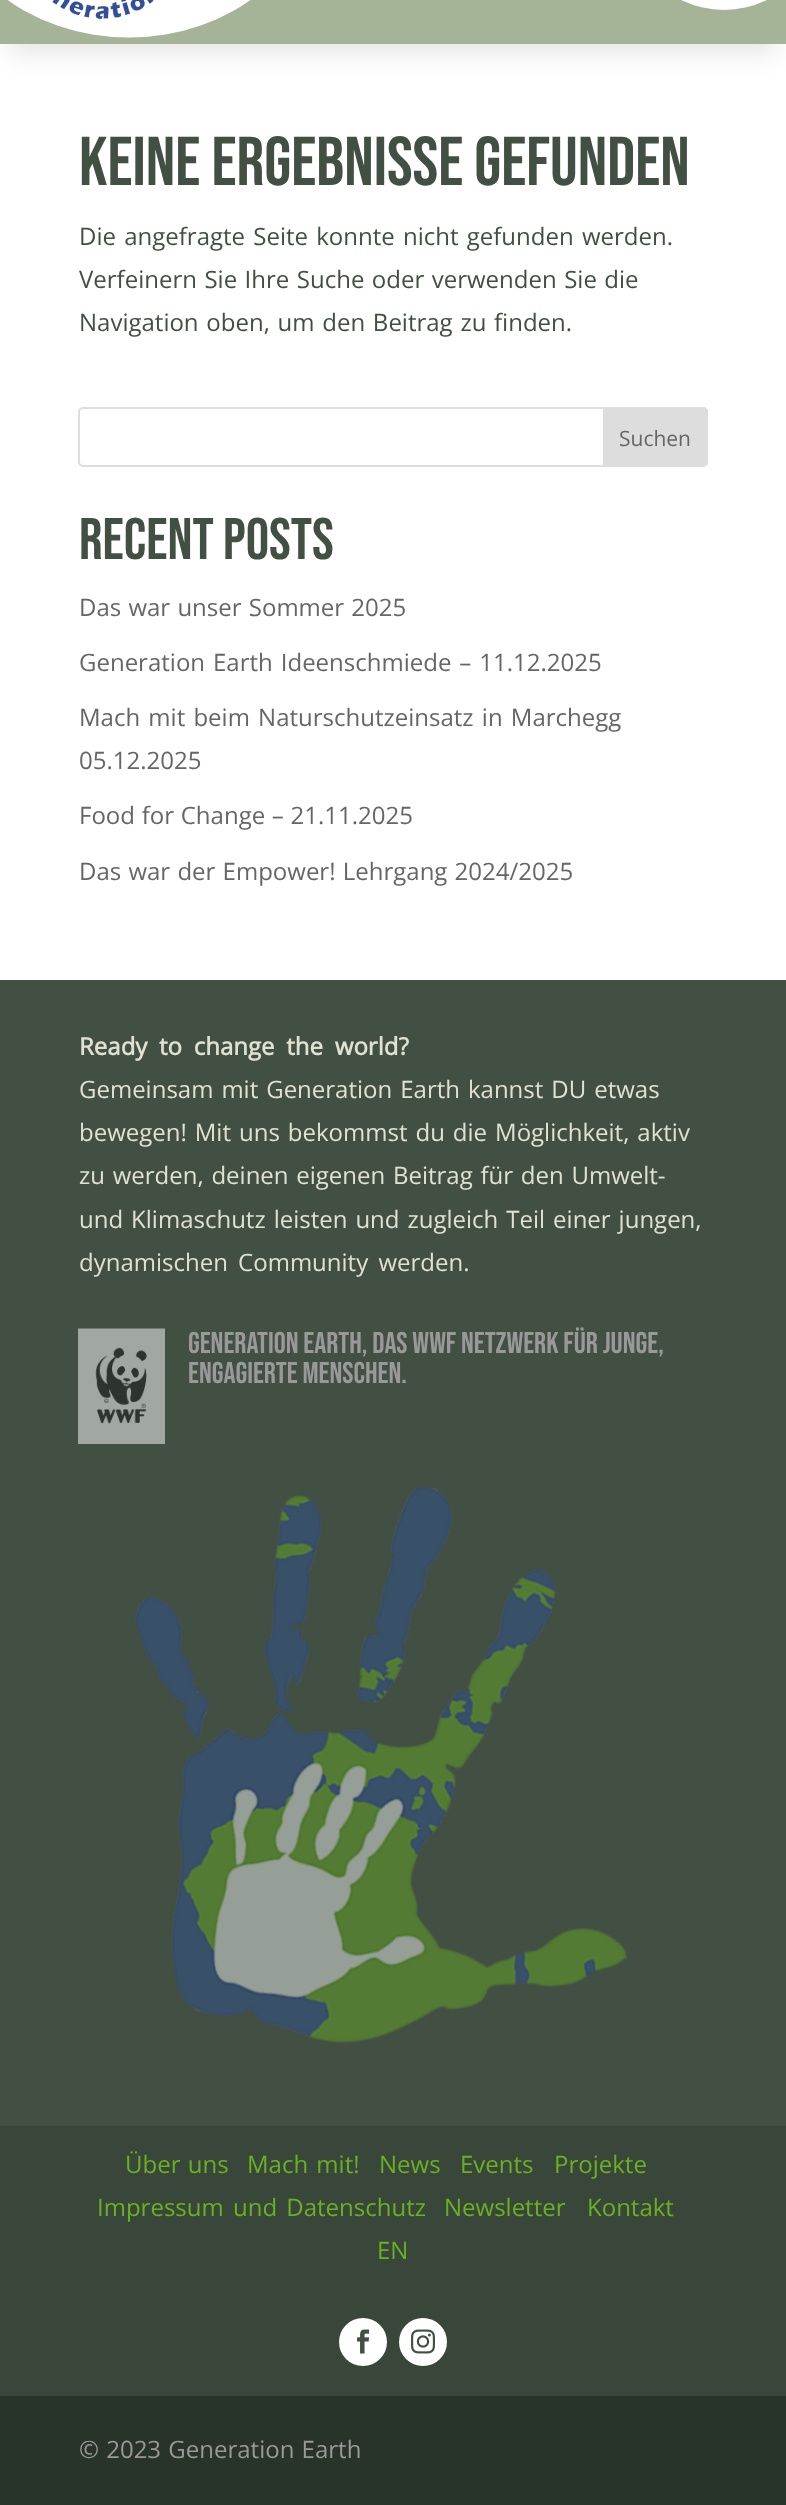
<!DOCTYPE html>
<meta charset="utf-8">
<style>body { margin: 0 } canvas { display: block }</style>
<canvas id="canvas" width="786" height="2505"></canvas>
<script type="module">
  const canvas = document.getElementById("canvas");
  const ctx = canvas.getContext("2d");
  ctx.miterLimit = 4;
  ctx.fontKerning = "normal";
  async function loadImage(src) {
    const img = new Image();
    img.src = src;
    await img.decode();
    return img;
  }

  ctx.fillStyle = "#ffffff";
  ctx.fillRect(0, 0, 786, 2505);
  ctx.fillStyle = "rgba(0, 0, 0, 0.1)";
  ctx.filter = "blur(13.5px)";
  ctx.beginPath();
  ctx.rect(9, -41, 768, 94);
  ctx.fill();
  ctx.filter = "none";
  ctx.fillStyle = "#a5b497";
  ctx.fillRect(0, 0, 786, 44);
  ctx.fillStyle = "#ffffff";
  ctx.beginPath();
  ctx.ellipse(129, -120, 187.5, 157.5, 0, 0, Math.PI * 2);
  ctx.fill();
  ctx.drawImage(await loadImage("img1.png"), 52, 0, 102, 20);
  ctx.beginPath();
  ctx.ellipse(724, -114.5, 109, 124.5, 0, 0, Math.PI * 2);
  ctx.fill();
  ctx.font = "69px Bebas Neue";
  ctx.fillStyle = "#415043";
  ctx.fillText("Keine Ergebnisse gefunden", 79, 185);
  ctx.wordSpacing = "2px";
  ctx.font = "24px Open Sans";
  ctx.fillText("Die angefragte Seite konnte nicht gefunden werden.", 79, 245);
  ctx.wordSpacing = "1.25px";
  ctx.fillText("Verfeinern Sie Ihre Suche oder verwenden Sie die", 79, 288);
  ctx.wordSpacing = "1.5px";
  ctx.fillText("Navigation oben, um den Beitrag zu finden.", 79, 331);
  ctx.beginPath();
  ctx.roundRect(79, 408, 628, 58, 4);
  ctx.strokeStyle = "#dddddd";
  ctx.lineWidth = 2;
  ctx.stroke();
  ctx.fillStyle = "#dddddd";
  ctx.beginPath();
  ctx.roundRect(604, 408, 103, 58, [0, 4, 4, 0]);
  ctx.fill();
  ctx.stroke();
  ctx.wordSpacing = "0px";
  ctx.font = "21px Open Sans";
  ctx.fillStyle = "#666666";
  ctx.fillText("Suchen", 619, 446);
  ctx.font = "58.5px Bebas Neue";
  ctx.fillStyle = "#415043";
  ctx.fillText("Recent Posts", 79, 559);
  ctx.wordSpacing = "1px";
  ctx.font = "24px Open Sans";
  ctx.fillStyle = "#666666";
  ctx.fillText("Das war unser Sommer 2025", 79, 616);
  ctx.wordSpacing = "1.75px";
  ctx.fillText("Generation Earth Ideenschmiede – 11.12.2025", 79, 671);
  ctx.wordSpacing = "2px";
  ctx.fillText("Mach mit beim Naturschutzeinsatz in Marchegg", 79, 726);
  ctx.wordSpacing = "0px";
  ctx.fillText("05.12.2025", 79, 769);
  ctx.wordSpacing = "0.5px";
  ctx.fillText("Food for Change – 21.11.2025", 79, 824);
  ctx.wordSpacing = "1px";
  ctx.fillText("Das war der Empower! Lehrgang 2024/2025", 79, 880);
  ctx.fillStyle = "#415043";
  ctx.fillRect(0, 980, 786, 1146);
  ctx.wordSpacing = "5.5px";
  ctx.font = "bold 24px Open Sans";
  ctx.fillStyle = "#e1e1d1";
  ctx.fillText("Ready to change the world?", 79, 1055);
  ctx.wordSpacing = "1.75px";
  ctx.font = "24px Open Sans";
  ctx.fillText("Gemeinsam mit Generation Earth kannst DU etwas", 79, 1098);
  ctx.fillText("bewegen! Mit uns bekommst du die Möglichkeit, aktiv", 79, 1141);
  ctx.wordSpacing = "1.5px";
  ctx.fillText("zu werden, deinen eigenen Beitrag für den Umwelt-", 79, 1184);
  ctx.wordSpacing = "1.75px";
  ctx.fillText("und Klimaschutz leisten und zugleich Teil einer jungen,", 79, 1228);
  ctx.wordSpacing = "4px";
  ctx.fillText("dynamischen Community werden.", 79, 1271);
  ctx.drawImage(await loadImage("img2.png"), 78, 1328, 87, 116);
  ctx.wordSpacing = "0px";
  ctx.font = "30px Bebas Neue";
  ctx.fillStyle = "#999999";
  ctx.fillText("Generation Earth, das WWF Netzwerk für junge,", 188, 1353);
  ctx.fillText("engagierte Menschen.", 188, 1383);
  ctx.drawImage(await loadImage("img3.png"), 134, 1486, 493, 557);
  ctx.fillStyle = "#39473b";
  ctx.fillRect(0, 2126, 786, 270);
  ctx.wordSpacing = "1px";
  ctx.font = "24px Open Sans";
  ctx.fillStyle = "#6bb022";
  ctx.fillText("Über uns", 125, 2173);
  ctx.wordSpacing = "2px";
  ctx.fillText("Mach mit!", 247, 2173);
  ctx.wordSpacing = "0px";
  ctx.fillText("News", 379, 2173);
  ctx.fillText("Events", 460, 2173);
  ctx.fillText("Projekte", 554, 2173);
  ctx.wordSpacing = "3px";
  ctx.fillText("Impressum und Datenschutz", 97, 2216);
  ctx.wordSpacing = "0px";
  ctx.fillText("Newsletter", 444, 2216);
  ctx.fillText("Kontakt", 587, 2216);
  ctx.fillText("EN", 377, 2259);
  ctx.fillStyle = "#ffffff";
  ctx.beginPath();
  ctx.arc(363, 2342, 24, 0, Math.PI * 2);
  ctx.fill();
  ctx.drawImage(await loadImage("img4.png"), 357, 2329, 13, 25);
  ctx.beginPath();
  ctx.arc(423, 2342, 24, 0, Math.PI * 2);
  ctx.fill();
  ctx.drawImage(await loadImage("img5.png"), 411, 2329, 24, 25);
  ctx.fillStyle = "#283329";
  ctx.fillRect(0, 2396, 786, 109);
  ctx.wordSpacing = "1px";
  ctx.fillStyle = "#999999";
  ctx.fillText("© 2023 Generation Earth", 79, 2458);
</script>
